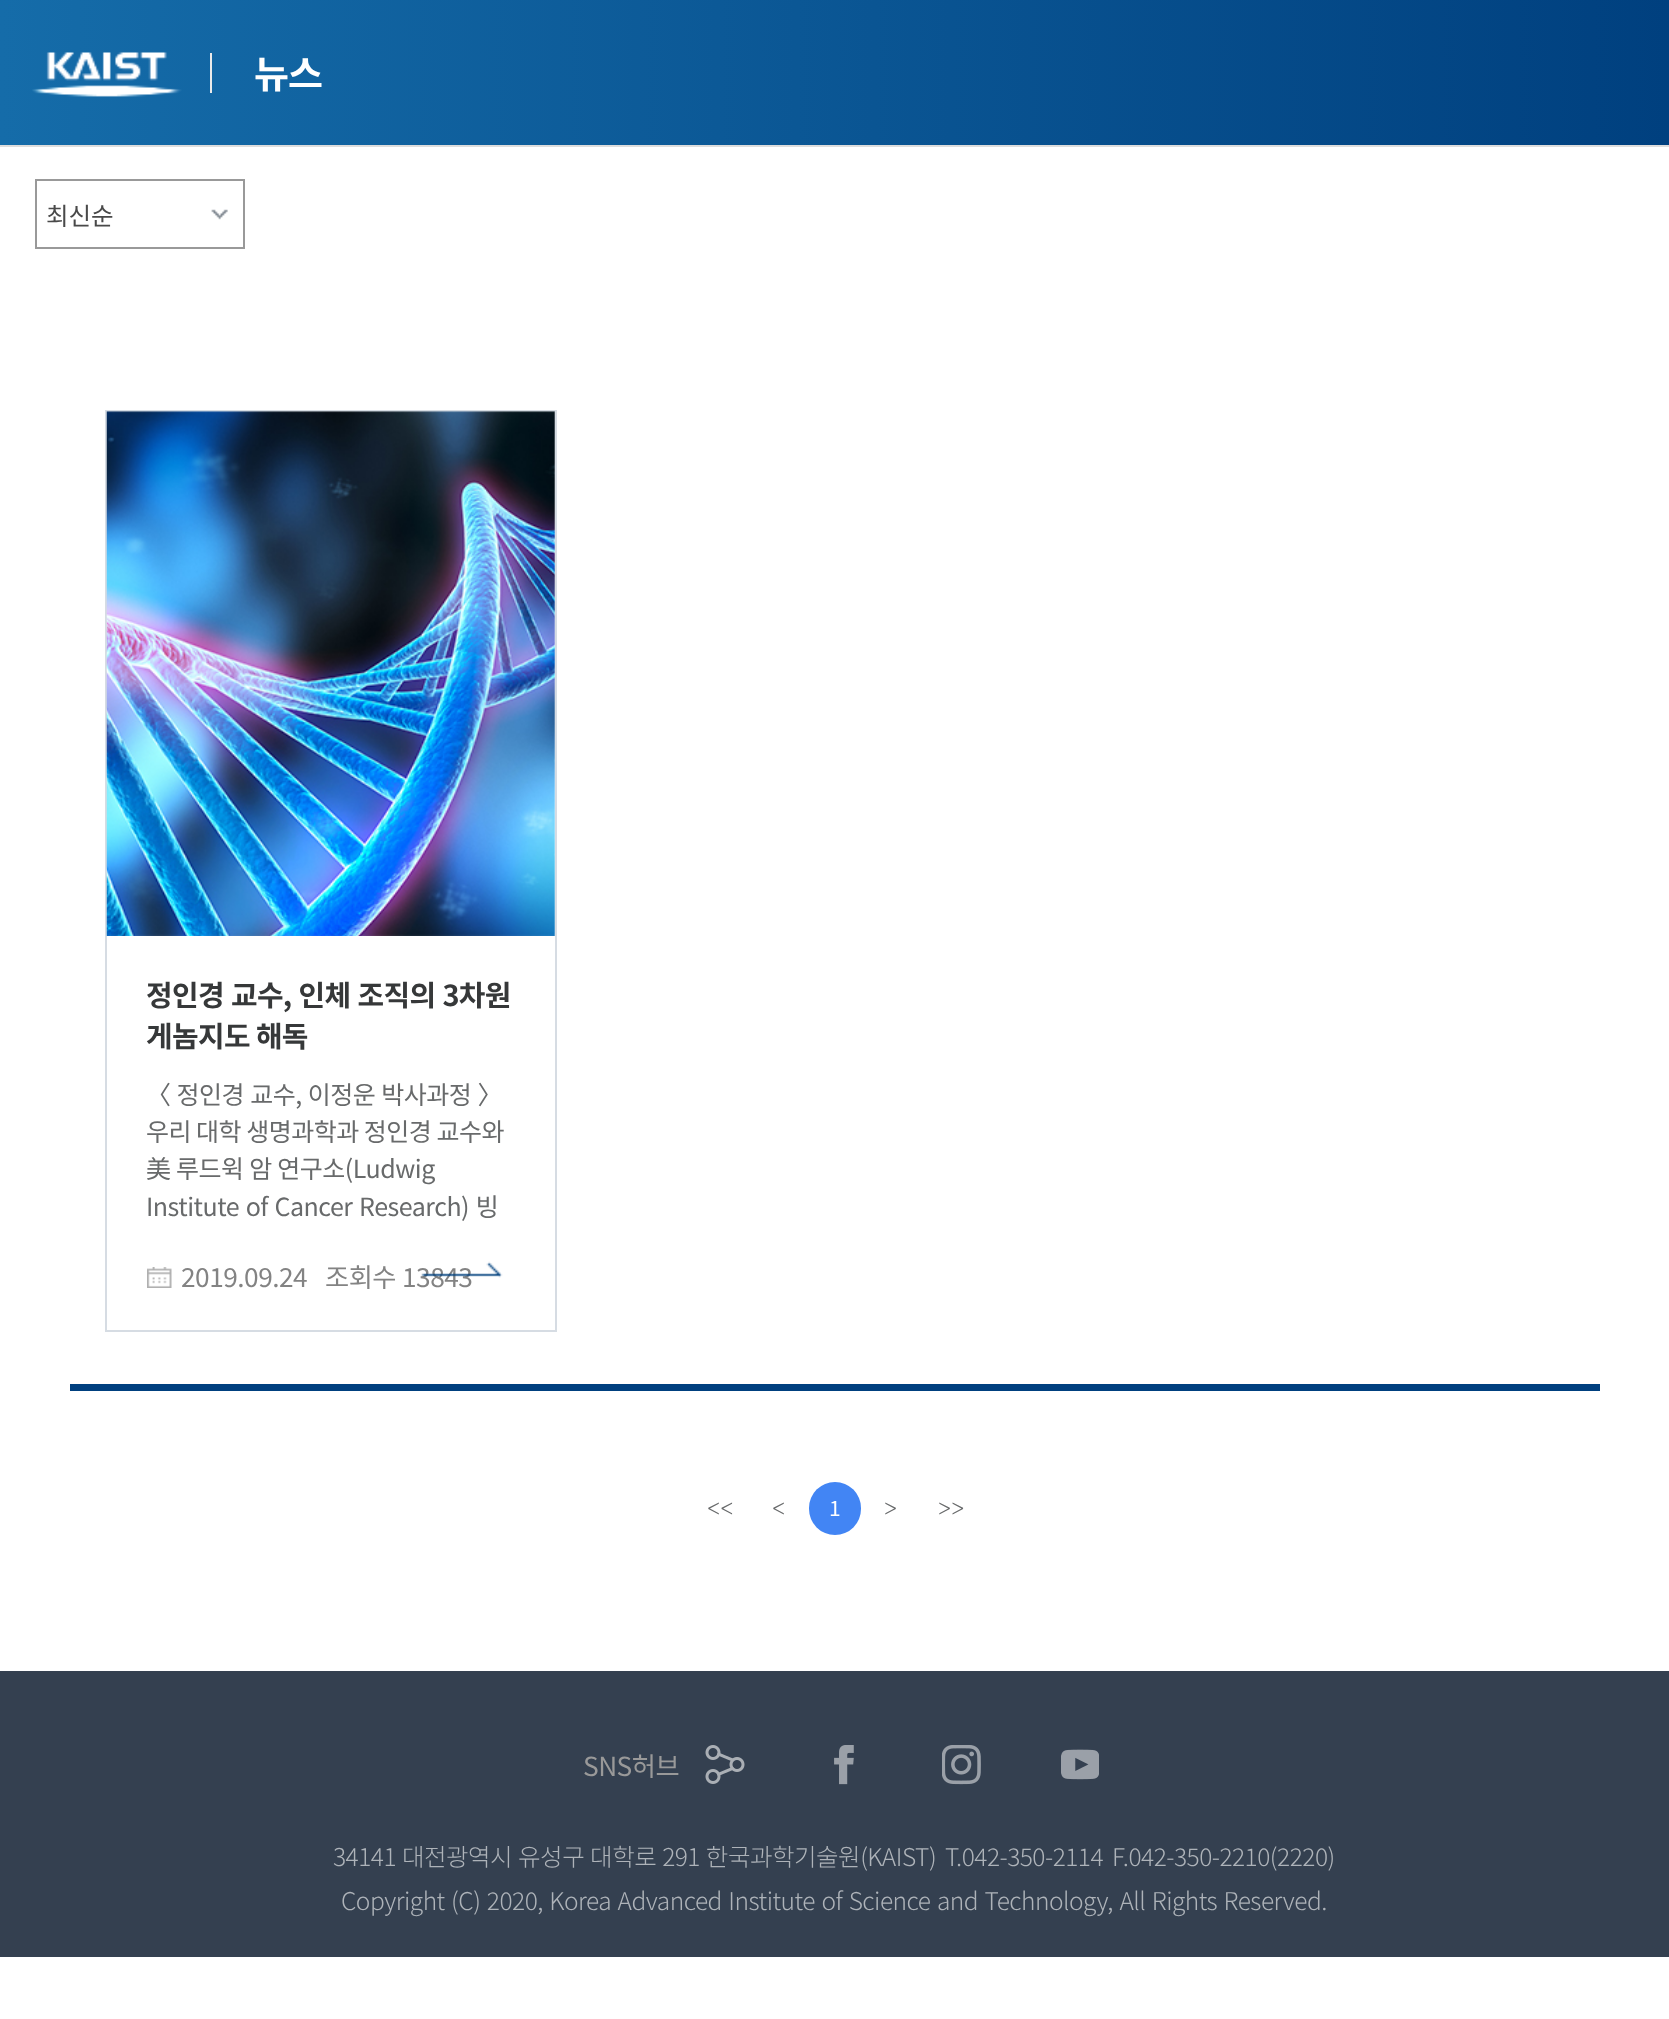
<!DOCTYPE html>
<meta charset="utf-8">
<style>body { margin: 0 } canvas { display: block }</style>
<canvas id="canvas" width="1669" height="2019"></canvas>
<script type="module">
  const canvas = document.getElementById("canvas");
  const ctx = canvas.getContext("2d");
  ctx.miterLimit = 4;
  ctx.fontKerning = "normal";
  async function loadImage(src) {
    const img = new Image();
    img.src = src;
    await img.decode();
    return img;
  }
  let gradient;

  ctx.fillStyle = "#ffffff";
  ctx.fillRect(0, 0, 1669, 2019);
  gradient = ctx.createLinearGradient(0, 73, 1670, 73);
  gradient.addColorStop(0, "#156ca9");
  gradient.addColorStop(1, "#00407f");
  ctx.fillStyle = gradient;
  ctx.fillRect(0, 0, 1669, 145);
  ctx.fillStyle = "#dddddd";
  ctx.fillRect(0, 145, 1669, 2);
  ctx.drawImage(await loadImage("img1.png"), 32, 52, 150, 45);
  ctx.fillStyle = "#eaeaea";
  ctx.fillRect(210, 53, 2, 40);
  ctx.letterSpacing = "-1px";
  ctx.font = "bold 38px Noto Sans CJK KR";
  ctx.fillStyle = "#ffffff";
  ctx.fillText("뉴스", 254, 88);
  ctx.drawImage(await loadImage("img2.png"), 211, 209, 17, 11);
  ctx.strokeStyle = "#999999";
  ctx.lineWidth = 2;
  ctx.strokeRect(36, 180, 208, 68);
  ctx.letterSpacing = "0px";
  ctx.font = "24.5px Noto Sans CJK KR";
  ctx.fillStyle = "#494949";
  ctx.fillText("최신순", 46, 225);
  ctx.strokeStyle = "#d6dce3";
  ctx.strokeRect(106, 411, 450, 920);
  ctx.drawImage(await loadImage("img3.png"), 106, 411, 449, 525);
  ctx.letterSpacing = "-0.6px";
  ctx.wordSpacing = "1px";
  ctx.font = "bold 28.9px Noto Sans CJK KR";
  ctx.fillStyle = "#363839";
  ctx.fillText("정인경 교수, 인체 조직의 3차원", 146, 1006);
  ctx.wordSpacing = "0px";
  ctx.fillText("게놈지도 해독", 146, 1047);
  ctx.letterSpacing = "-0.5px";
  ctx.wordSpacing = "1px";
  ctx.font = "25px Noto Sans CJK KR";
  ctx.fillStyle = "#686a6b";
  ctx.fillText("〈 정인경 교수, 이정운 박사과정 〉", 146, 1104);
  ctx.wordSpacing = "0px";
  ctx.fillText("우리 대학 생명과학과 정인경 교수와", 146, 1141);
  ctx.wordSpacing = "0.5px";
  ctx.fillText("美 루드윅 암 연구소(Ludwig", 146, 1178);
  ctx.wordSpacing = "1.5px";
  ctx.fillText("Institute of Cancer Research) 빙", 146, 1216);
  ctx.wordSpacing = "0px";
  ctx.font = "26.25px Noto Sans CJK KR";
  ctx.fillStyle = "#838383";
  ctx.fillText("13843", 402, 1287);
  ctx.drawImage(await loadImage("img4.png"), 421, 1261, 82, 17);
  ctx.drawImage(await loadImage("img5.png"), 147, 1267, 25, 21);
  ctx.fillText("2019.09.24", 181, 1287);
  ctx.fillText("조회수", 325, 1287);
  ctx.fillStyle = "#00407f";
  ctx.fillRect(70, 1384, 1530, 7);
  ctx.letterSpacing = "0px";
  ctx.font = "21px Dotum";
  ctx.fillStyle = "#686a6b";
  ctx.fillText("<<", 707, 1516);
  ctx.fillText("<", 772, 1516);
  ctx.fillStyle = "#4285f4";
  ctx.beginPath();
  ctx.roundRect(809, 1482, 52, 53, 26);
  ctx.fill();
  ctx.font = "21px Noto Sans CJK KR";
  ctx.fillStyle = "#ffffff";
  ctx.fillText("1", 829, 1516);
  ctx.font = "21px Dotum";
  ctx.fillStyle = "#686a6b";
  ctx.fillText(">", 884, 1516);
  ctx.fillText(">>", 938, 1516);
  ctx.fillStyle = "#344050";
  ctx.fillRect(0, 1671, 1669, 286);
  ctx.letterSpacing = "-0.5px";
  ctx.font = "26.25px Noto Sans CJK KR";
  ctx.fillStyle = "#999999";
  ctx.fillText("SNS허브", 583, 1776);
  ctx.drawImage(await loadImage("img6.png"), 705, 1745, 40, 39);
  ctx.drawImage(await loadImage("img7.png"), 834, 1745, 20, 40);
  ctx.drawImage(await loadImage("img8.png"), 942, 1745, 39, 40);
  ctx.drawImage(await loadImage("img9.png"), 1061, 1749, 38, 31);
  ctx.wordSpacing = "1px";
  ctx.font = "300 24.5px Noto Sans CJK KR";
  ctx.fillStyle = "#aeb3b9";
  ctx.fillText("34141 대전광역시 유성구 대학로 291 한국과학기술원(KAIST)", 333, 1866);
  ctx.wordSpacing = "0px";
  ctx.fillText("T.042-350-2114", 945, 1866);
  ctx.fillText("F.042-350-2210(2220)", 1112, 1866);
  ctx.wordSpacing = "1.5px";
  ctx.fillText("Copyright (C) 2020, Korea Advanced Institute of Science and Technology, All Rights Reserved.", 341, 1910);
</script>
